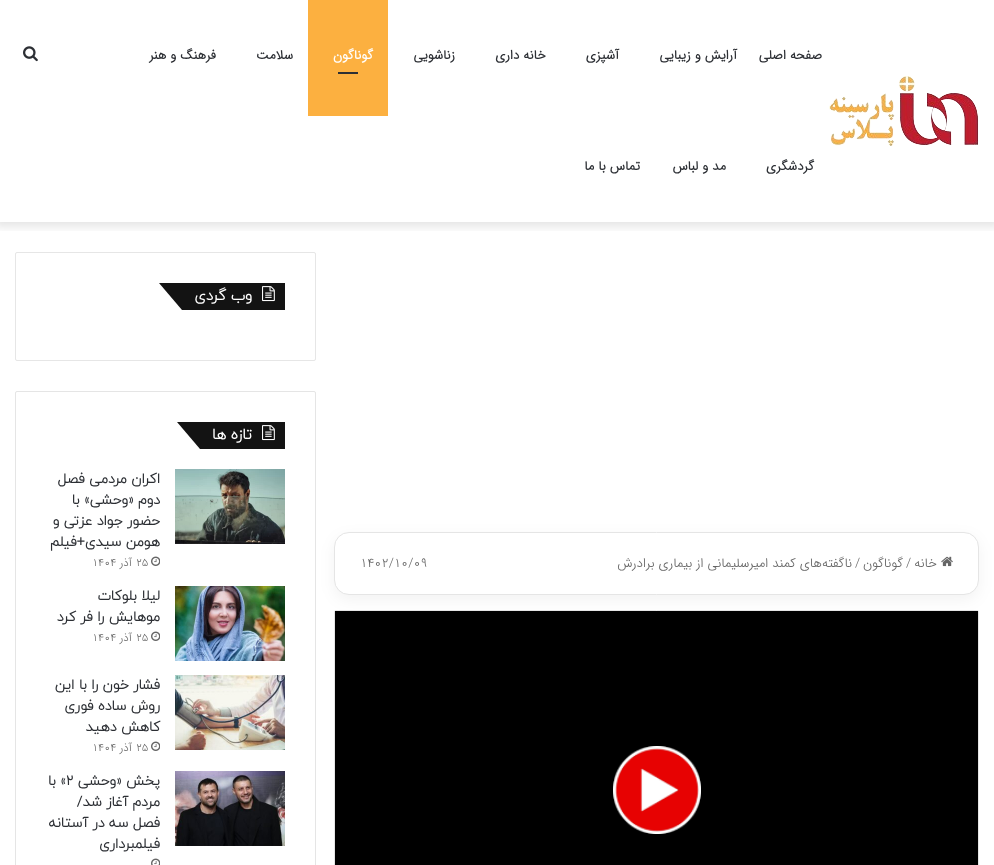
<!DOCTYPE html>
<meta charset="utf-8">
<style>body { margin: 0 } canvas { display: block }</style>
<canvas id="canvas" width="994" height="865"></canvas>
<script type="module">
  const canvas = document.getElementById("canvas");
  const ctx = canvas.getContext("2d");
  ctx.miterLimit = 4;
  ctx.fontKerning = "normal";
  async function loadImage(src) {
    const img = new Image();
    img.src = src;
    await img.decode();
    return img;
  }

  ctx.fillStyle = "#ffffff";
  ctx.fillRect(0, 0, 994, 865);
  ctx.save();
  ctx.beginPath();
  ctx.rect(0, 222, 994, 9);
  ctx.clip();
  ctx.fillStyle = "rgba(0, 0, 0, 0.1)";
  ctx.filter = "blur(5px)";
  ctx.beginPath();
  ctx.rect(-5, -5, 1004, 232);
  ctx.fill();
  ctx.filter = "none";
  ctx.restore();
  ctx.drawImage(await loadImage("img1.png"), 829, 76, 150, 70);
  ctx.direction = "rtl";
  ctx.font = "bold 13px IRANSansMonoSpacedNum";
  ctx.fillStyle = "#2c2f34";
  ctx.fillText("صفحه اصلی", 822, 59);
  ctx.fillText("آرایش و زیبایی", 737, 59);
  ctx.fillText("آشپزی", 619, 59);
  ctx.fillText("خانه داری", 546, 59);
  ctx.fillText("زناشویی", 455, 59);
  ctx.fillStyle = "#fcb040";
  ctx.fillRect(308, 0, 80, 116);
  ctx.fillStyle = "#ffffff";
  ctx.fillText("گوناگون", 373, 59);
  ctx.fillStyle = "#2c2f34";
  ctx.fillRect(338, 72, 20, 2);
  ctx.fillText("سلامت", 293, 59);
  ctx.fillText("فرهنگ و هنر", 216, 59);
  ctx.fillText("گردشگری", 814, 170);
  ctx.fillText("مد و لباس", 726, 170);
  ctx.fillText("تماس با ما", 640, 170);
  ctx.drawImage(await loadImage("img2.png"), 23, 46, 15, 16);
  ctx.fillStyle = "rgba(0, 0, 0, 0.05)";
  ctx.filter = "blur(7.5px)";
  ctx.beginPath();
  ctx.roundRect(334, 537, 645, 63, 15);
  ctx.fill();
  ctx.filter = "none";
  ctx.fillStyle = "#ffffff";
  ctx.beginPath();
  ctx.roundRect(334.5, 532.5, 644, 62, 14.5);
  ctx.fill();
  ctx.strokeStyle = "#e5e5e5";
  ctx.stroke();
  ctx.drawImage(await loadImage("img3.png"), 941, 556, 12, 11);
  ctx.font = "300 13px IRANSansMonoSpacedNum";
  ctx.fillStyle = "#666666";
  ctx.fillText("خانه", 937, 567);
  ctx.direction = "ltr";
  ctx.fillText("/", 906, 567);
  ctx.direction = "rtl";
  ctx.fillText("گوناگون", 903, 567);
  ctx.direction = "ltr";
  ctx.fillText("/", 855, 567);
  ctx.direction = "rtl";
  ctx.fillText("ناگفته‌های کمند امیرسلیمانی از بیماری برادرش", 852, 567);
  ctx.direction = "ltr";
  ctx.fillText("1402/10/09", 360, 567);
  ctx.beginPath();
  ctx.roundRect(334.5, 610.5, 644, 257, 1.5);
  ctx.stroke();
  ctx.fillStyle = "#000000";
  ctx.fillRect(335, 611, 643, 254);
  ctx.drawImage(await loadImage("img4.png"), 613, 746, 88, 88);
  ctx.beginPath();
  ctx.roundRect(15.5, 252.5, 300, 108, 1.5);
  ctx.strokeStyle = "#e6e6e6";
  ctx.stroke();
  ctx.fillStyle = "#131313";
  ctx.fillRect(230, 283, 55, 27);
  ctx.beginPath();
  ctx.moveTo(159, 283);
  ctx.lineTo(230, 283);
  ctx.lineTo(252, 310);
  ctx.lineTo(182, 310);
  ctx.closePath();
  ctx.fill();
  ctx.drawImage(await loadImage("img5.png"), 262, 286, 13, 16);
  ctx.direction = "rtl";
  ctx.font = "bold 15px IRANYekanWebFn";
  ctx.fillStyle = "#ffffff";
  ctx.fillText("وب گردی", 252, 300);
  ctx.beginPath();
  ctx.roundRect(15.5, 391.5, 300, 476, 1.5);
  ctx.strokeStyle = "#e5e5e5";
  ctx.stroke();
  ctx.fillStyle = "#131313";
  ctx.fillRect(235, 422, 50, 27);
  ctx.beginPath();
  ctx.moveTo(177, 422);
  ctx.lineTo(235, 422);
  ctx.lineTo(258, 449);
  ctx.lineTo(200, 449);
  ctx.closePath();
  ctx.fill();
  ctx.drawImage(await loadImage("img5.png"), 262, 425, 13, 16);
  ctx.fillStyle = "#ffffff";
  ctx.fillText("تازه ها", 252, 439);
  ctx.drawImage(await loadImage("img6.png"), 175, 469, 110, 75);
  ctx.font = "bold 14px IRANYekanWebFn";
  ctx.fillStyle = "#2c2f34";
  ctx.fillText("اکران مردمی فصل", 160, 483);
  ctx.fillText("دوم «وحشی» با", 160, 504);
  ctx.fillText("حضور جواد عزتی و", 160, 525);
  ctx.fillText("هومن سیدی+فیلم", 160, 546);
  ctx.drawImage(await loadImage("img7.png"), 151, 556, 9, 10);
  ctx.direction = "ltr";
  ctx.font = "300 11px IRANSansMonoSpacedNum";
  ctx.fillStyle = "#666666";
  ctx.fillText("۲۵", 136, 566);
  ctx.direction = "rtl";
  ctx.fillText("آذر", 132, 566);
  ctx.direction = "ltr";
  ctx.fillText("۱۴۰۴", 92, 566);
  ctx.drawImage(await loadImage("img8.png"), 175, 586, 110, 75);
  ctx.direction = "rtl";
  ctx.font = "bold 14px IRANYekanWebFn";
  ctx.fillStyle = "#2c2f34";
  ctx.fillText("لیلا بلوکات", 160, 600);
  ctx.fillText("موهایش را فر کرد", 160, 621);
  ctx.drawImage(await loadImage("img7.png"), 151, 631, 9, 10);
  ctx.direction = "ltr";
  ctx.font = "300 11px IRANSansMonoSpacedNum";
  ctx.fillStyle = "#666666";
  ctx.fillText("۲۵", 136, 641);
  ctx.direction = "rtl";
  ctx.fillText("آذر", 132, 641);
  ctx.direction = "ltr";
  ctx.fillText("۱۴۰۴", 92, 641);
  ctx.drawImage(await loadImage("img9.png"), 175, 675, 110, 75);
  ctx.direction = "rtl";
  ctx.font = "bold 14px IRANYekanWebFn";
  ctx.fillStyle = "#2c2f34";
  ctx.fillText("فشار خون را با این", 160, 689);
  ctx.fillText("روش ساده فوری", 160, 710);
  ctx.fillText("کاهش دهید", 160, 731);
  ctx.drawImage(await loadImage("img7.png"), 151, 741, 9, 10);
  ctx.direction = "ltr";
  ctx.font = "300 11px IRANSansMonoSpacedNum";
  ctx.fillStyle = "#666666";
  ctx.fillText("۲۵", 136, 751);
  ctx.direction = "rtl";
  ctx.fillText("آذر", 132, 751);
  ctx.direction = "ltr";
  ctx.fillText("۱۴۰۴", 92, 751);
  ctx.drawImage(await loadImage("img10.png"), 175, 771, 110, 75);
  ctx.direction = "rtl";
  ctx.font = "bold 14px IRANYekanWebFn";
  ctx.fillStyle = "#2c2f34";
  ctx.fillText("پخش «وحشی", 160, 785);
  ctx.direction = "ltr";
  ctx.fillText("۲", 66, 785);
  ctx.direction = "rtl";
  ctx.fillText("» با", 66, 785);
  ctx.fillText("مردم آغاز شد/", 160, 806);
  ctx.fillText("فصل سه در آستانه", 160, 827);
  ctx.fillText("فیلمبرداری", 160, 848);
  ctx.drawImage(await loadImage("img11.png"), 151, 858, 9, 7);
</script>
